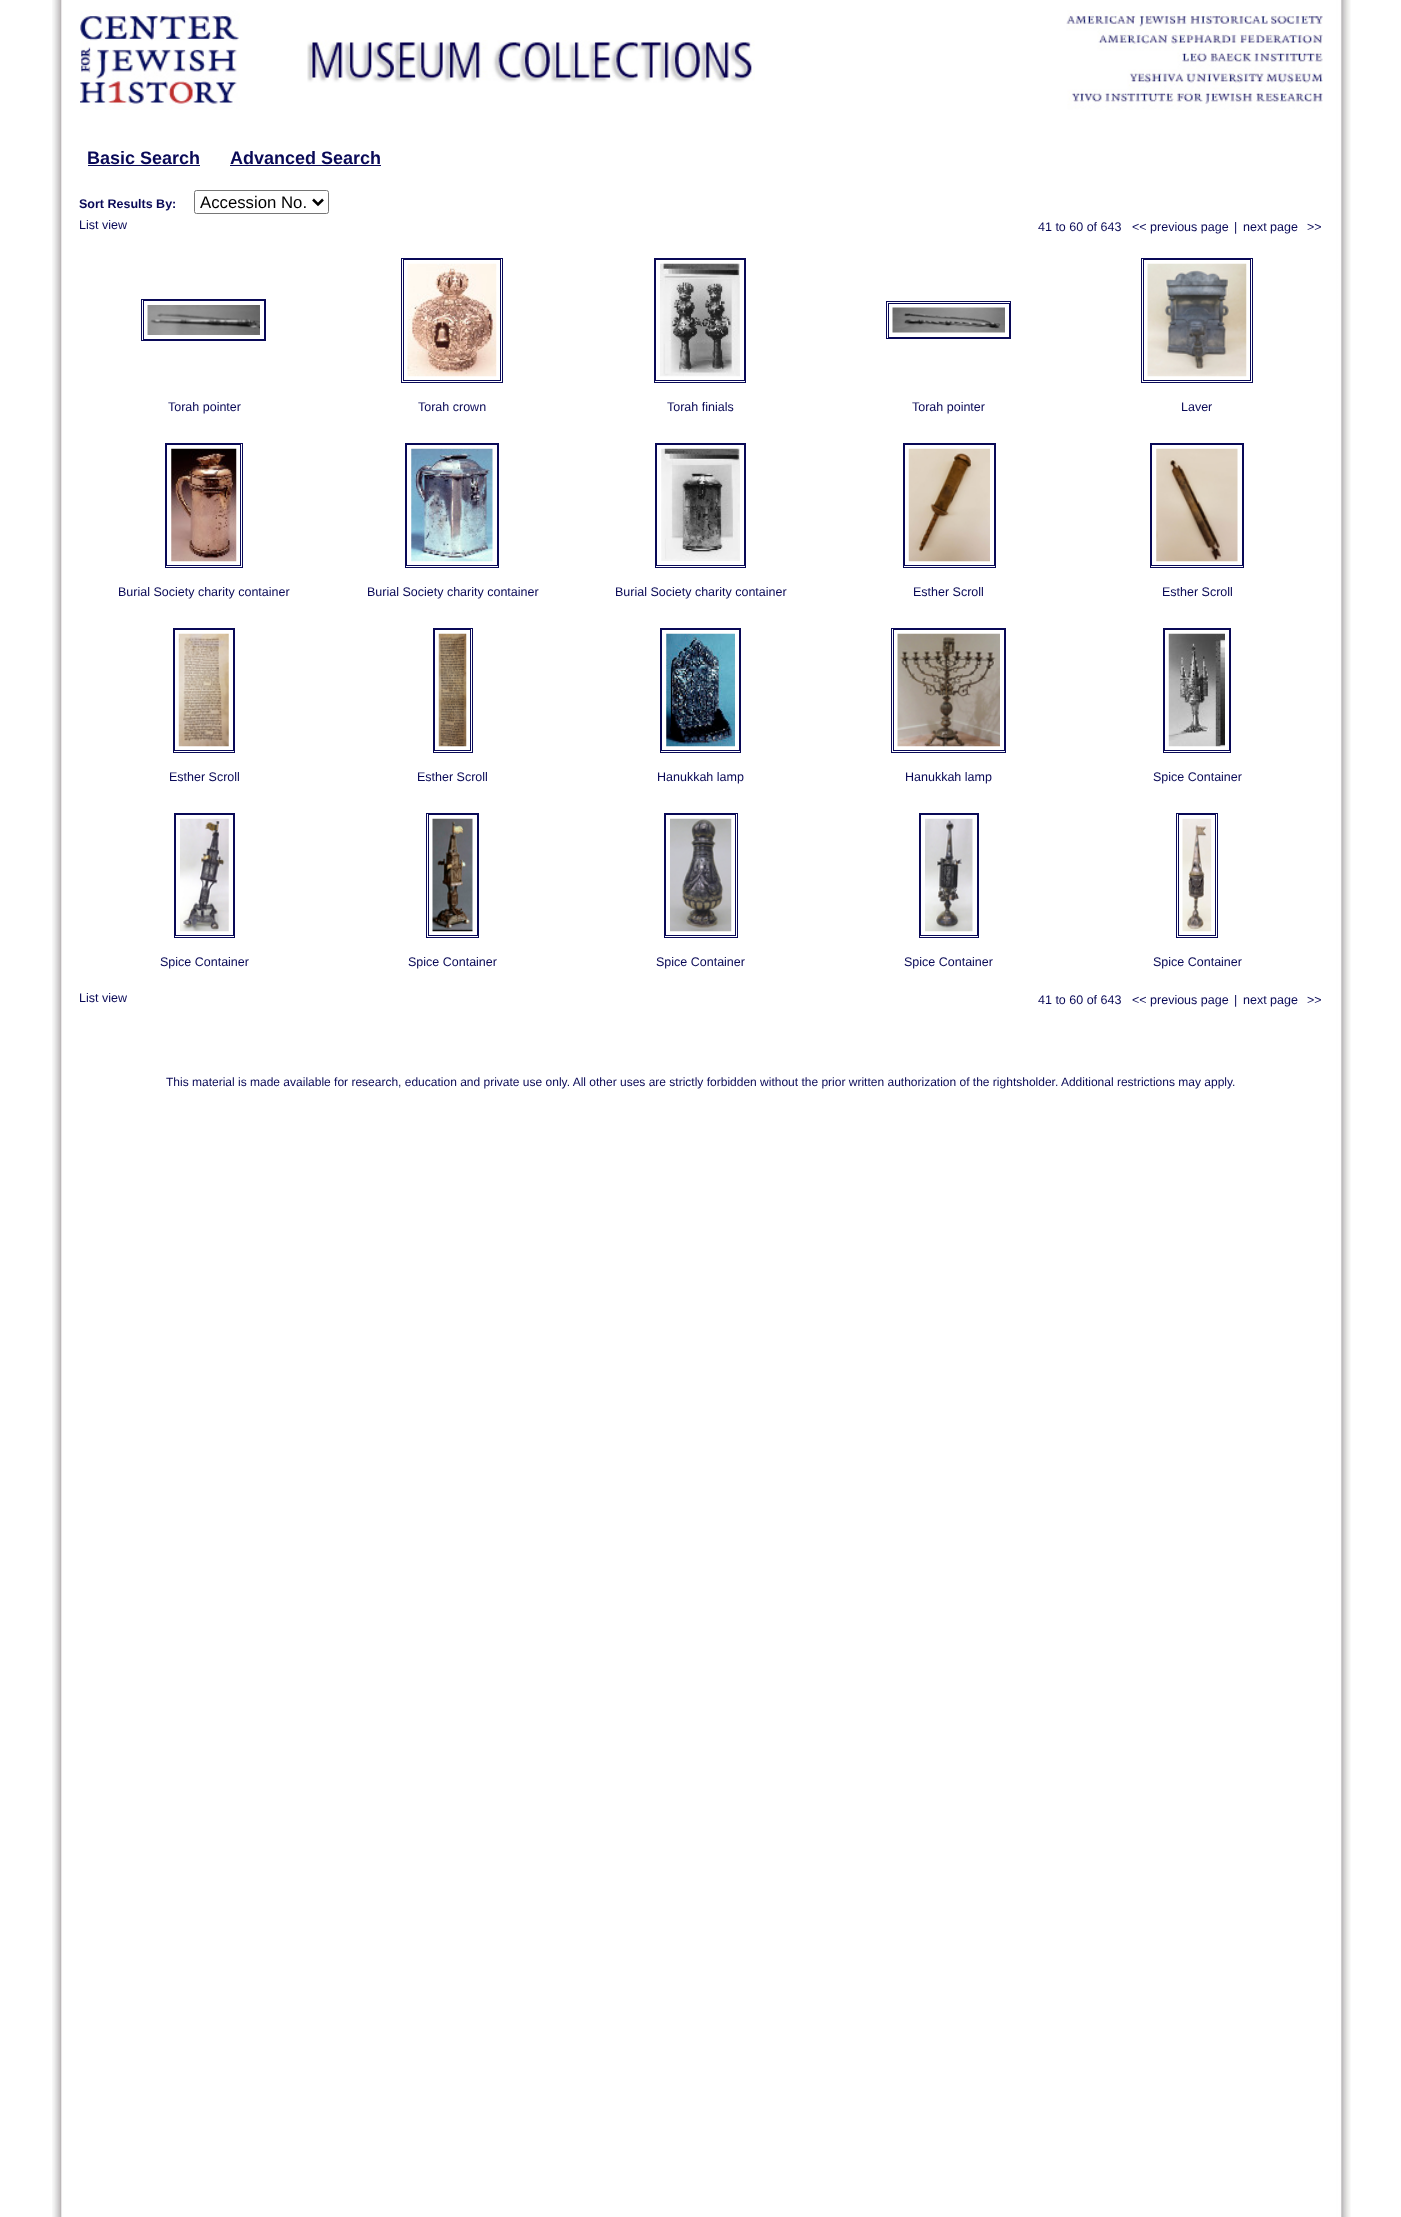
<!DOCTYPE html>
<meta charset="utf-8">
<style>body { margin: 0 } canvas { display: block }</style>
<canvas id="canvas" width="1401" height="2217"></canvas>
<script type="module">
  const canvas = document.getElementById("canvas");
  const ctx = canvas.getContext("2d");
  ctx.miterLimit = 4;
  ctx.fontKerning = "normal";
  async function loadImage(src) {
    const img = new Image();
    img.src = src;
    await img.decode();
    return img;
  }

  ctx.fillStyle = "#ffffff";
  ctx.fillRect(0, 0, 1401, 2217);
  ctx.drawImage(await loadImage("img1.png"), 52, 0, 1299, 2217);
  ctx.drawImage(await loadImage("img2.png"), 80, 10, 160, 100);
  ctx.drawImage(await loadImage("img3.png"), 307, 40, 448, 43);
  ctx.drawImage(await loadImage("img4.png"), 1066, 10, 257, 100);
  ctx.font = "bold 18px Liberation Sans";
  ctx.fillStyle = "#090957";
  ctx.fillText("Basic Search", 87, 164);
  ctx.fillRect(88, 165, 112, 1);
  ctx.fillText("Advanced Search", 230, 164);
  ctx.fillRect(230, 165, 151, 1);
  ctx.font = "bold 12.5px Liberation Sans";
  ctx.fillText("Sort Results By:", 79, 208);
  ctx.beginPath();
  ctx.roundRect(194.5, 190.5, 134, 23, 2);
  ctx.strokeStyle = "#767676";
  ctx.stroke();
  ctx.beginPath();
  ctx.moveTo(313, 199.5);
  ctx.lineTo(318, 204.5);
  ctx.lineTo(323, 199.5);
  ctx.strokeStyle = "#000000";
  ctx.lineWidth = 2.5;
  ctx.stroke();
  ctx.font = "16.75px Liberation Sans";
  ctx.fillStyle = "#000000";
  ctx.fillText("Accession No.", 200, 208);
  ctx.font = "12.5px Liberation Sans";
  ctx.fillStyle = "#090957";
  ctx.fillText("List view", 79, 229);
  ctx.fillText("41 to 60 of 643", 1038, 231);
  ctx.fillText("<< previous page", 1132, 231);
  ctx.fillText("|", 1234, 231);
  ctx.fillText("next page", 1243, 231);
  ctx.fillText(">>", 1307, 231);
  ctx.strokeStyle = "#090957";
  ctx.lineWidth = 1;
  ctx.strokeRect(141.5, 299.5, 124, 41);
  ctx.strokeRect(143.5, 300.5, 121, 39);
  ctx.drawImage(await loadImage("img5.png"), 147, 305, 113, 30);
  ctx.fillText("Torah pointer", 168, 411);
  ctx.strokeRect(401.5, 258.5, 101, 124);
  ctx.strokeRect(403.5, 259.5, 97, 121);
  ctx.drawImage(await loadImage("img6.png"), 407, 263, 90, 114);
  ctx.fillText("Torah crown", 418, 411);
  ctx.strokeRect(654.5, 258.5, 91, 124);
  ctx.strokeRect(655.5, 259.5, 89, 121);
  ctx.drawImage(await loadImage("img7.png"), 660, 263, 80, 114);
  ctx.fillText("Torah finials", 667, 411);
  ctx.strokeRect(886.5, 301.5, 124, 37);
  ctx.strokeRect(888.5, 303.5, 121, 34);
  ctx.drawImage(await loadImage("img8.png"), 892, 307, 113, 26);
  ctx.fillText("Torah pointer", 912, 411);
  ctx.strokeRect(1141.5, 258.5, 111, 124);
  ctx.strokeRect(1143.5, 259.5, 107, 121);
  ctx.drawImage(await loadImage("img9.png"), 1147, 263, 100, 114);
  ctx.fillText("Laver", 1181, 411);
  ctx.strokeRect(165.5, 443.5, 77, 124);
  ctx.strokeRect(166.5, 444.5, 74, 121);
  ctx.drawImage(await loadImage("img10.png"), 171, 448, 66, 114);
  ctx.fillText("Burial Society charity container", 118, 596);
  ctx.strokeRect(405.5, 443.5, 93, 124);
  ctx.strokeRect(406.5, 444.5, 91, 121);
  ctx.drawImage(await loadImage("img11.png"), 411, 448, 82, 114);
  ctx.fillText("Burial Society charity container", 367, 596);
  ctx.strokeRect(655.5, 443.5, 90, 124);
  ctx.strokeRect(656.5, 444.5, 88, 121);
  ctx.drawImage(await loadImage("img12.png"), 661, 448, 79, 113);
  ctx.fillText("Burial Society charity container", 615, 596);
  ctx.strokeRect(903.5, 443.5, 92, 124);
  ctx.strokeRect(904.5, 444.5, 90, 121);
  ctx.drawImage(await loadImage("img13.png"), 908, 448, 82, 114);
  ctx.fillText("Esther Scroll", 913, 596);
  ctx.strokeRect(1150.5, 443.5, 93, 124);
  ctx.strokeRect(1151.5, 444.5, 91, 121);
  ctx.drawImage(await loadImage("img14.png"), 1156, 448, 82, 114);
  ctx.fillText("Esther Scroll", 1162, 596);
  ctx.strokeRect(173.5, 628.5, 61, 124);
  ctx.strokeRect(174.5, 629.5, 59, 121);
  ctx.drawImage(await loadImage("img15.png"), 178, 633, 51, 114);
  ctx.fillText("Esther Scroll", 169, 781);
  ctx.strokeRect(433.5, 628.5, 39, 124);
  ctx.strokeRect(434.5, 629.5, 36, 121);
  ctx.drawImage(await loadImage("img16.png"), 438, 633, 29, 114);
  ctx.fillText("Esther Scroll", 417, 781);
  ctx.strokeRect(660.5, 628.5, 80, 124);
  ctx.strokeRect(661.5, 629.5, 78, 121);
  ctx.drawImage(await loadImage("img17.png"), 666, 633, 69, 114);
  ctx.fillText("Hanukkah lamp", 657, 781);
  ctx.strokeRect(891.5, 628.5, 114, 124);
  ctx.strokeRect(893.5, 629.5, 111, 121);
  ctx.drawImage(await loadImage("img18.png"), 897, 633, 103, 114);
  ctx.fillText("Hanukkah lamp", 905, 781);
  ctx.strokeRect(1163.5, 628.5, 67, 124);
  ctx.strokeRect(1164.5, 629.5, 65, 121);
  ctx.drawImage(await loadImage("img19.png"), 1168, 633, 57, 114);
  ctx.fillText("Spice Container", 1153, 781);
  ctx.strokeRect(174.5, 813.5, 60, 124);
  ctx.strokeRect(175.5, 814.5, 58, 121);
  ctx.drawImage(await loadImage("img20.png"), 180, 818, 49, 114);
  ctx.fillText("Spice Container", 160, 966);
  ctx.strokeRect(426.5, 813.5, 52, 124);
  ctx.strokeRect(428.5, 814.5, 49, 121);
  ctx.drawImage(await loadImage("img21.png"), 432, 818, 41, 114);
  ctx.fillText("Spice Container", 408, 966);
  ctx.strokeRect(664.5, 813.5, 73, 124);
  ctx.strokeRect(665.5, 814.5, 70, 121);
  ctx.drawImage(await loadImage("img22.png"), 670, 818, 62, 114);
  ctx.fillText("Spice Container", 656, 966);
  ctx.strokeRect(919.5, 813.5, 59, 124);
  ctx.strokeRect(920.5, 814.5, 57, 121);
  ctx.drawImage(await loadImage("img23.png"), 925, 818, 48, 114);
  ctx.fillText("Spice Container", 904, 966);
  ctx.strokeRect(1176.5, 813.5, 41, 124);
  ctx.strokeRect(1178.5, 814.5, 37, 121);
  ctx.drawImage(await loadImage("img24.png"), 1182, 818, 30, 114);
  ctx.fillText("Spice Container", 1153, 966);
  ctx.fillText("List view", 79, 1002);
  ctx.fillText("41 to 60 of 643", 1038, 1004);
  ctx.fillText("<< previous page", 1132, 1004);
  ctx.fillText("|", 1234, 1004);
  ctx.fillText("next page", 1243, 1004);
  ctx.fillText(">>", 1307, 1004);
  ctx.font = "12px Liberation Sans";
  ctx.fillText("This material is made available for research, education and private use only. All other uses are strictly forbidden without the prior written authorization of the rightsholder. Additional restrictions may apply.", 166, 1086);
</script>
